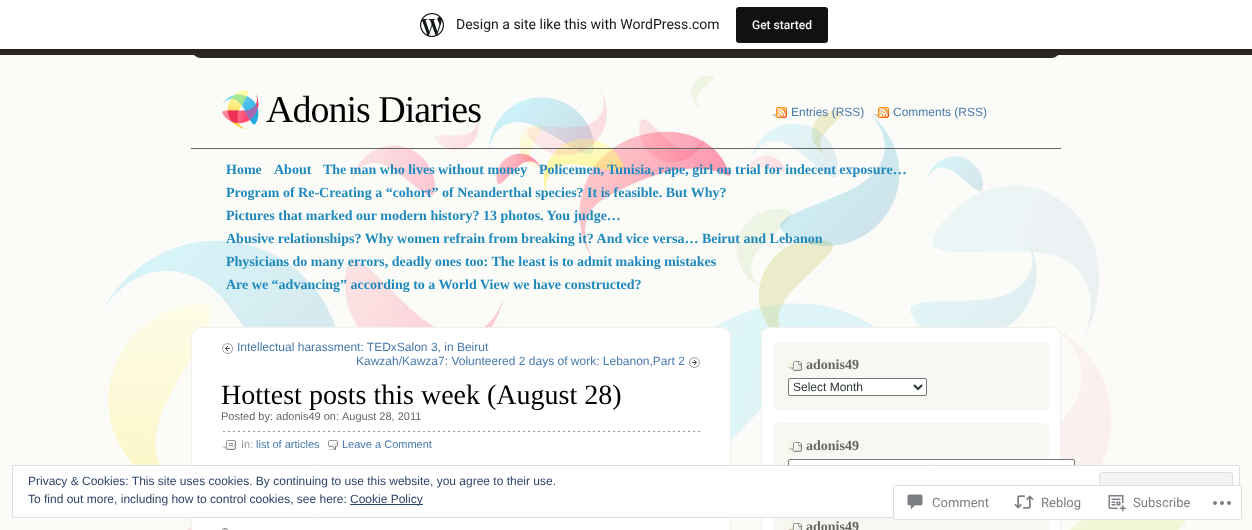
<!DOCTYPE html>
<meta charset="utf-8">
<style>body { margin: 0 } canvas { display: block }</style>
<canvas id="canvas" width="1252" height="530"></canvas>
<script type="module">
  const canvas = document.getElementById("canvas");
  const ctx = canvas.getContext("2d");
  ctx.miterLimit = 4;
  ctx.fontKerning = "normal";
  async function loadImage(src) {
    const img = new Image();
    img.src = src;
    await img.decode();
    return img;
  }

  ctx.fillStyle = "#fbfbf8";
  ctx.fillRect(0, 0, 1252, 530);
  ctx.drawImage(await loadImage("img1.png"), 103, 72, 1088, 458);
  ctx.fillStyle = "#2a2623";
  ctx.fillRect(0, 49, 1252, 6);
  ctx.fillStyle = "#272320";
  ctx.beginPath();
  ctx.moveTo(1, 49);
  ctx.lineTo(1, 52);
  ctx.lineTo(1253, 52);
  ctx.lineTo(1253, 3);
  ctx.lineTo(1252, 3);
  ctx.lineTo(1252, 49);
  ctx.closePath();
  ctx.fill();
  ctx.fillStyle = "#ffffff";
  ctx.fillRect(0, 0, 1252, 49);
  ctx.drawImage(await loadImage("img2.png"), 420, 13, 24, 24);
  ctx.font = "14px Roboto";
  ctx.fillStyle = "#171717";
  ctx.fillText("Design a site like this with WordPress.com", 456, 29);
  ctx.fillStyle = "#111111";
  ctx.beginPath();
  ctx.roundRect(736, 7, 92, 36, 3);
  ctx.fill();
  ctx.font = "500 12px Roboto";
  ctx.fillStyle = "#f6f7f7";
  ctx.fillText("Get started", 752, 29);
  ctx.drawImage(await loadImage("img3.png"), 194, 55, 865, 3);
  ctx.fillStyle = "#666666";
  ctx.fillRect(191, 148, 870, 1);
  ctx.drawImage(await loadImage("img4.png"), 222, 90, 37, 39);
  ctx.letterSpacing = "-1px";
  ctx.font = "38px Liberation Serif";
  ctx.fillStyle = "#000000";
  ctx.fillText("Adonis Diaries", 266, 122);
  ctx.drawImage(await loadImage("img5.png"), 771, 107, 16, 11);
  ctx.letterSpacing = "0px";
  ctx.font = "12px Liberation Sans";
  ctx.fillStyle = "#4779ac";
  ctx.fillText("Entries (RSS)", 791, 116);
  ctx.drawImage(await loadImage("img6.png"), 873, 107, 16, 11);
  ctx.fillText("Comments (RSS)", 893, 116);
  ctx.font = "bold 14px Liberation Serif";
  ctx.fillStyle = "#1f89be";
  ctx.fillText("Home", 226, 174);
  ctx.fillText("About", 274, 174);
  ctx.fillText("The man who lives without money", 323, 174);
  ctx.fillText("Policemen, Tunisia, rape, girl on trial for indecent exposure…", 539, 174);
  ctx.fillText("Program of Re-Creating a “cohort” of Neanderthal species? It is feasible. But Why?", 226, 197);
  ctx.fillText("Pictures that marked our modern history? 13 photos. You judge…", 226, 220);
  ctx.fillText("Abusive relationships? Why women refrain from breaking it? And vice versa… Beirut and Lebanon", 226, 243);
  ctx.fillText("Physicians do many errors, deadly ones too: The least is to admit making mistakes", 226, 266);
  ctx.fillText("Are we “advancing” according to a World View we have constructed?", 226, 289);
  ctx.drawImage(await loadImage("img7.png"), 191, 327, 540, 15);
  ctx.fillStyle = "#ffffff";
  ctx.fillRect(192, 342, 538, 188);
  ctx.fillStyle = "#f2f0ea";
  ctx.fillRect(730, 342, 1, 188);
  ctx.fillRect(191, 342, 1, 188);
  ctx.drawImage(await loadImage("img8.png"), 222, 343, 11, 11);
  ctx.font = "12px Liberation Sans";
  ctx.fillStyle = "#4779ac";
  ctx.fillText("Intellectual harassment: TEDxSalon 3, in Beirut", 237, 351);
  ctx.drawImage(await loadImage("img9.png"), 689, 357, 11, 11);
  ctx.fillText("Kawzah/Kawza7: Volunteered 2 days of work: Lebanon,Part 2", 356, 365);
  ctx.drawImage(await loadImage("img10.png"), 223, 431, 477, 1);
  ctx.font = "28px Liberation Serif";
  ctx.fillStyle = "#000000";
  ctx.fillText("Hottest posts this week (August 28)", 221, 404);
  ctx.font = "11px Liberation Sans";
  ctx.fillStyle = "#666666";
  ctx.fillText("Posted by: adonis49 on:", 221, 420);
  ctx.fillText("August 28, 2011", 342, 420);
  ctx.drawImage(await loadImage("img11.png"), 221, 440, 15, 10);
  ctx.fillStyle = "#999999";
  ctx.fillText("In:", 241, 448);
  ctx.fillStyle = "#4779ac";
  ctx.fillText("list of articles", 256, 448);
  ctx.drawImage(await loadImage("img12.png"), 328, 440, 10, 10);
  ctx.fillText("Leave a Comment", 342, 448);
  ctx.drawImage(await loadImage("img13.png"), 222, 528, 6, 2);
  ctx.drawImage(await loadImage("img14.png"), 761, 327, 300, 15);
  ctx.fillStyle = "#ffffff";
  ctx.fillRect(762, 342, 298, 188);
  ctx.fillStyle = "#f2f0ea";
  ctx.fillRect(1060, 342, 1, 188);
  ctx.fillRect(761, 342, 1, 188);
  ctx.fillStyle = "#f8f8f2";
  ctx.fillRect(773, 345, 276, 63);
  ctx.drawImage(await loadImage("img15.png"), 773, 342, 276, 3);
  ctx.drawImage(await loadImage("img16.png"), 773, 408, 276, 3);
  ctx.drawImage(await loadImage("img17.png"), 788, 361, 14, 10);
  ctx.font = "bold 14px Liberation Serif";
  ctx.fillStyle = "#666666";
  ctx.fillText("adonis49", 806, 369);
  ctx.fillStyle = "#ffffff";
  ctx.beginPath();
  ctx.roundRect(788.5, 378.5, 138, 17, 1.5);
  ctx.fill();
  ctx.strokeStyle = "#767676";
  ctx.stroke();
  ctx.beginPath();
  ctx.moveTo(914, 385);
  ctx.lineTo(918, 389);
  ctx.lineTo(922, 385);
  ctx.strokeStyle = "#2d3538";
  ctx.lineWidth = 2;
  ctx.stroke();
  ctx.font = "12px Liberation Sans";
  ctx.fillStyle = "#2d3538";
  ctx.fillText("Select Month", 793, 391);
  ctx.fillStyle = "#f8f8f2";
  ctx.fillRect(773, 426, 276, 39);
  ctx.drawImage(await loadImage("img15.png"), 773, 423, 276, 3);
  ctx.drawImage(await loadImage("img17.png"), 788, 442, 14, 10);
  ctx.font = "bold 14px Liberation Serif";
  ctx.fillStyle = "#666666";
  ctx.fillText("adonis49", 806, 450);
  ctx.fillStyle = "#ffffff";
  ctx.beginPath();
  ctx.roundRect(788.5, 459.5, 286, 17, 1.5);
  ctx.fill();
  ctx.strokeStyle = "#767676";
  ctx.lineWidth = 1;
  ctx.stroke();
  ctx.fillStyle = "#f8f8f2";
  ctx.fillRect(773, 518, 276, 12);
  ctx.drawImage(await loadImage("img18.png"), 788, 523, 14, 7);
  ctx.fillStyle = "#666666";
  ctx.fillText("adonis49", 806, 531);
  ctx.fillStyle = "#ffffff";
  ctx.beginPath();
  ctx.rect(12.5, 465.5, 1227, 52);
  ctx.fill();
  ctx.strokeStyle = "#dedede";
  ctx.stroke();
  ctx.font = "12px Liberation Sans";
  ctx.fillStyle = "#2e4467";
  ctx.fillText("Privacy & Cookies: This site uses cookies. By continuing to use this website, you agree to their use.", 28, 485);
  ctx.fillStyle = "#f3f3f3";
  ctx.beginPath();
  ctx.roundRect(1099.5, 472.5, 133, 38, 2.5);
  ctx.fill();
  ctx.stroke();
  ctx.fillStyle = "#2e4467";
  ctx.fillText("To find out more, including how to control cookies, see here:", 28, 503);
  ctx.fillRect(350, 504, 73, 1);
  ctx.fillText("Cookie Policy", 350, 503);
  ctx.fillStyle = "rgba(255, 255, 255, 0.98)";
  ctx.beginPath();
  ctx.roundRect(893, 485, 349, 35, 3);
  ctx.fill();
  ctx.beginPath();
  ctx.roundRect(893.5, 485.5, 348, 34, 2.5);
  ctx.strokeStyle = "rgba(220, 220, 222, 0.98)";
  ctx.stroke();
  ctx.drawImage(await loadImage("img19.png"), 907, 494, 16, 16);
  ctx.font = "13px Roboto";
  ctx.fillStyle = "#7b7f85";
  ctx.fillText("Comment", 932, 507);
  ctx.drawImage(await loadImage("img20.png"), 1014, 495, 20, 14);
  ctx.fillText("Reblog", 1041, 507);
  ctx.drawImage(await loadImage("img21.png"), 1108, 495, 18, 17);
  ctx.fillText("Subscribe", 1133, 507);
  ctx.drawImage(await loadImage("img22.png"), 1213, 501, 18, 4);
</script>
